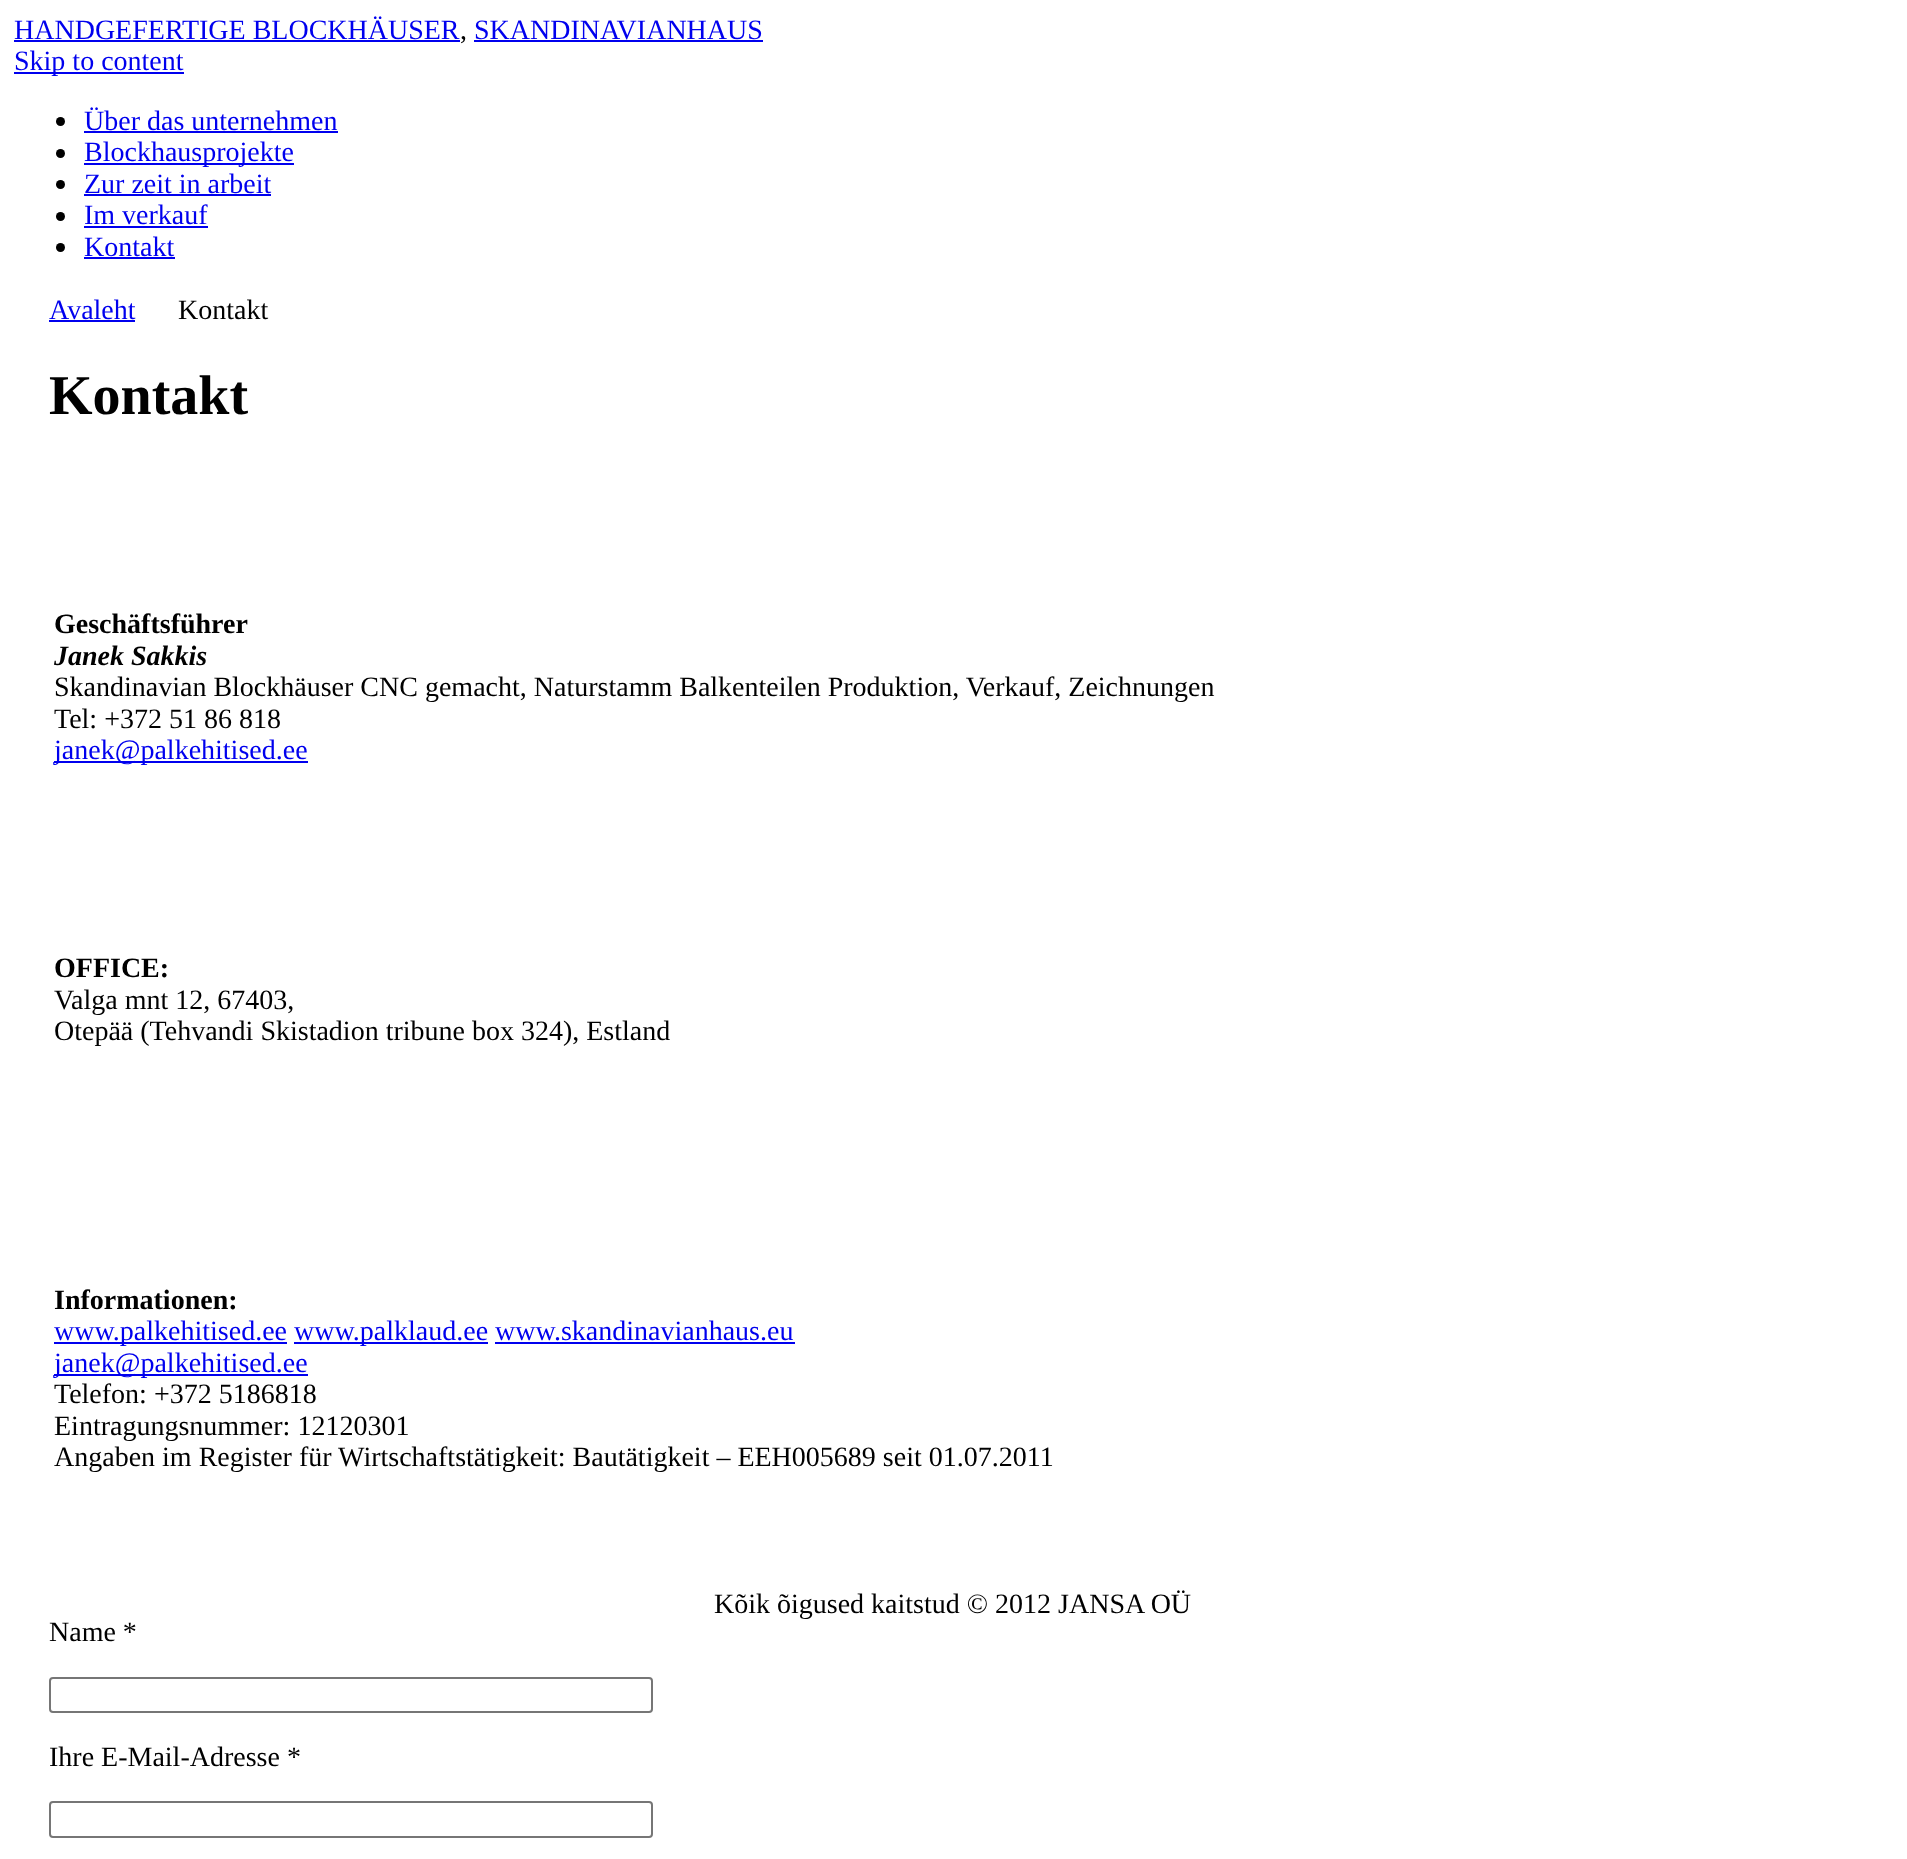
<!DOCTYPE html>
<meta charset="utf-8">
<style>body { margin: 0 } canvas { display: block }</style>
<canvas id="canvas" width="1907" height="1859"></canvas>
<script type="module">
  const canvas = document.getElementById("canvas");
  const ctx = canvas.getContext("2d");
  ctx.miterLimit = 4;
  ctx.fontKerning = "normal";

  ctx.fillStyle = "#ffffff";
  ctx.fillRect(0, 0, 1907, 1859);
  ctx.font = "28px Liberation Serif";
  ctx.fillStyle = "#0000ee";
  ctx.fillText("HANDGEFERTIGE BLOCKHÄUSER", 14, 39);
  ctx.fillRect(14, 40, 446, 2);
  ctx.fillStyle = "#000000";
  ctx.fillText(",", 460, 39);
  ctx.fillStyle = "#0000ee";
  ctx.fillText("SKANDINAVIANHAUS", 474, 39);
  ctx.fillRect(474, 40, 289, 2);
  ctx.fillRect(14, 72, 170, 2);
  ctx.fillText("Skip to content", 14, 70);
  ctx.fillStyle = "#000000";
  ctx.beginPath();
  ctx.arc(60.5, 121.5, 4.5, 0, Math.PI * 2);
  ctx.fill();
  ctx.fillStyle = "#0000ee";
  ctx.fillText("Über das unternehmen", 84, 130);
  ctx.fillRect(84, 131, 254, 2);
  ctx.fillStyle = "#000000";
  ctx.beginPath();
  ctx.arc(60.5, 153.5, 4.5, 0, Math.PI * 2);
  ctx.fill();
  ctx.fillStyle = "#0000ee";
  ctx.fillRect(84, 163, 210, 2);
  ctx.fillText("Blockhausprojekte", 84, 161);
  ctx.fillStyle = "#000000";
  ctx.beginPath();
  ctx.arc(60.5, 184.5, 4.5, 0, Math.PI * 2);
  ctx.fill();
  ctx.fillStyle = "#0000ee";
  ctx.fillText("Zur zeit in arbeit", 84, 193);
  ctx.fillRect(84, 194, 187, 2);
  ctx.fillStyle = "#000000";
  ctx.beginPath();
  ctx.arc(60.5, 216.5, 4.5, 0, Math.PI * 2);
  ctx.fill();
  ctx.fillStyle = "#0000ee";
  ctx.fillText("Im verkauf", 84, 224);
  ctx.fillRect(84, 226, 124, 2);
  ctx.fillStyle = "#000000";
  ctx.beginPath();
  ctx.arc(60.5, 247.5, 4.5, 0, Math.PI * 2);
  ctx.fill();
  ctx.fillStyle = "#0000ee";
  ctx.fillText("Kontakt", 84, 256);
  ctx.fillRect(84, 257, 91, 2);
  ctx.fillText("Avaleht", 49, 319);
  ctx.fillRect(49, 320, 86, 2);
  ctx.fillStyle = "#000000";
  ctx.fillText("Kontakt", 178, 319);
  ctx.font = "bold 56px Liberation Serif";
  ctx.fillText("Kontakt", 49, 414);
  ctx.font = "bold 28px Liberation Serif";
  ctx.fillText("Geschäftsführer", 54, 633);
  ctx.font = "italic bold 28px Liberation Serif";
  ctx.fillText("Janek Sakkis", 54, 665);
  ctx.font = "28px Liberation Serif";
  ctx.fillText("Skandinavian Blockhäuser CNC gemacht, Naturstamm Balkenteilen Produktion, Verkauf, Zeichnungen", 54, 696);
  ctx.fillText("Tel: +372 51 86 818", 54, 728);
  ctx.fillStyle = "#0000ee";
  ctx.fillRect(54, 761, 254, 2);
  ctx.fillText("janek@palkehitised.ee", 54, 759);
  ctx.font = "bold 28px Liberation Serif";
  ctx.fillStyle = "#000000";
  ctx.fillText("OFFICE:", 54, 977);
  ctx.font = "28px Liberation Serif";
  ctx.fillText("Valga mnt 12, 67403,", 54, 1009);
  ctx.fillText("Otepää (Tehvandi Skistadion tribune box 324), Estland", 54, 1040);
  ctx.font = "bold 28px Liberation Serif";
  ctx.fillText("Informationen:", 54, 1309);
  ctx.fillStyle = "#0000ee";
  ctx.fillRect(54, 1342, 233, 2);
  ctx.font = "28px Liberation Serif";
  ctx.fillText("www.palkehitised.ee", 54, 1340);
  ctx.fillRect(294, 1342, 194, 2);
  ctx.fillText("www.palklaud.ee www.skandinavianhaus.eu", 294, 1340);
  ctx.fillRect(495, 1342, 300, 2);
  ctx.fillRect(54, 1374, 254, 2);
  ctx.fillText("janek@palkehitised.ee", 54, 1372);
  ctx.fillStyle = "#000000";
  ctx.fillText("Telefon: +372 5186818", 54, 1403);
  ctx.fillText("Eintragungsnummer: 12120301", 54, 1435);
  ctx.fillText("Angaben im Register für Wirtschaftstätigkeit: Bautätigkeit – EEH005689 seit 01.07.2011", 54, 1466);
  ctx.fillText("Name *", 49, 1641);
  ctx.beginPath();
  ctx.roundRect(50, 1678, 602, 34, 3);
  ctx.strokeStyle = "#767676";
  ctx.lineWidth = 2;
  ctx.stroke();
  ctx.fillText("Ihre E-Mail-Adresse *", 49, 1766);
  ctx.beginPath();
  ctx.roundRect(50, 1802, 602, 35, 3);
  ctx.stroke();
  ctx.fillText("Kõik õigused kaitstud © 2012 JANSA OÜ", 714, 1613);
</script>
